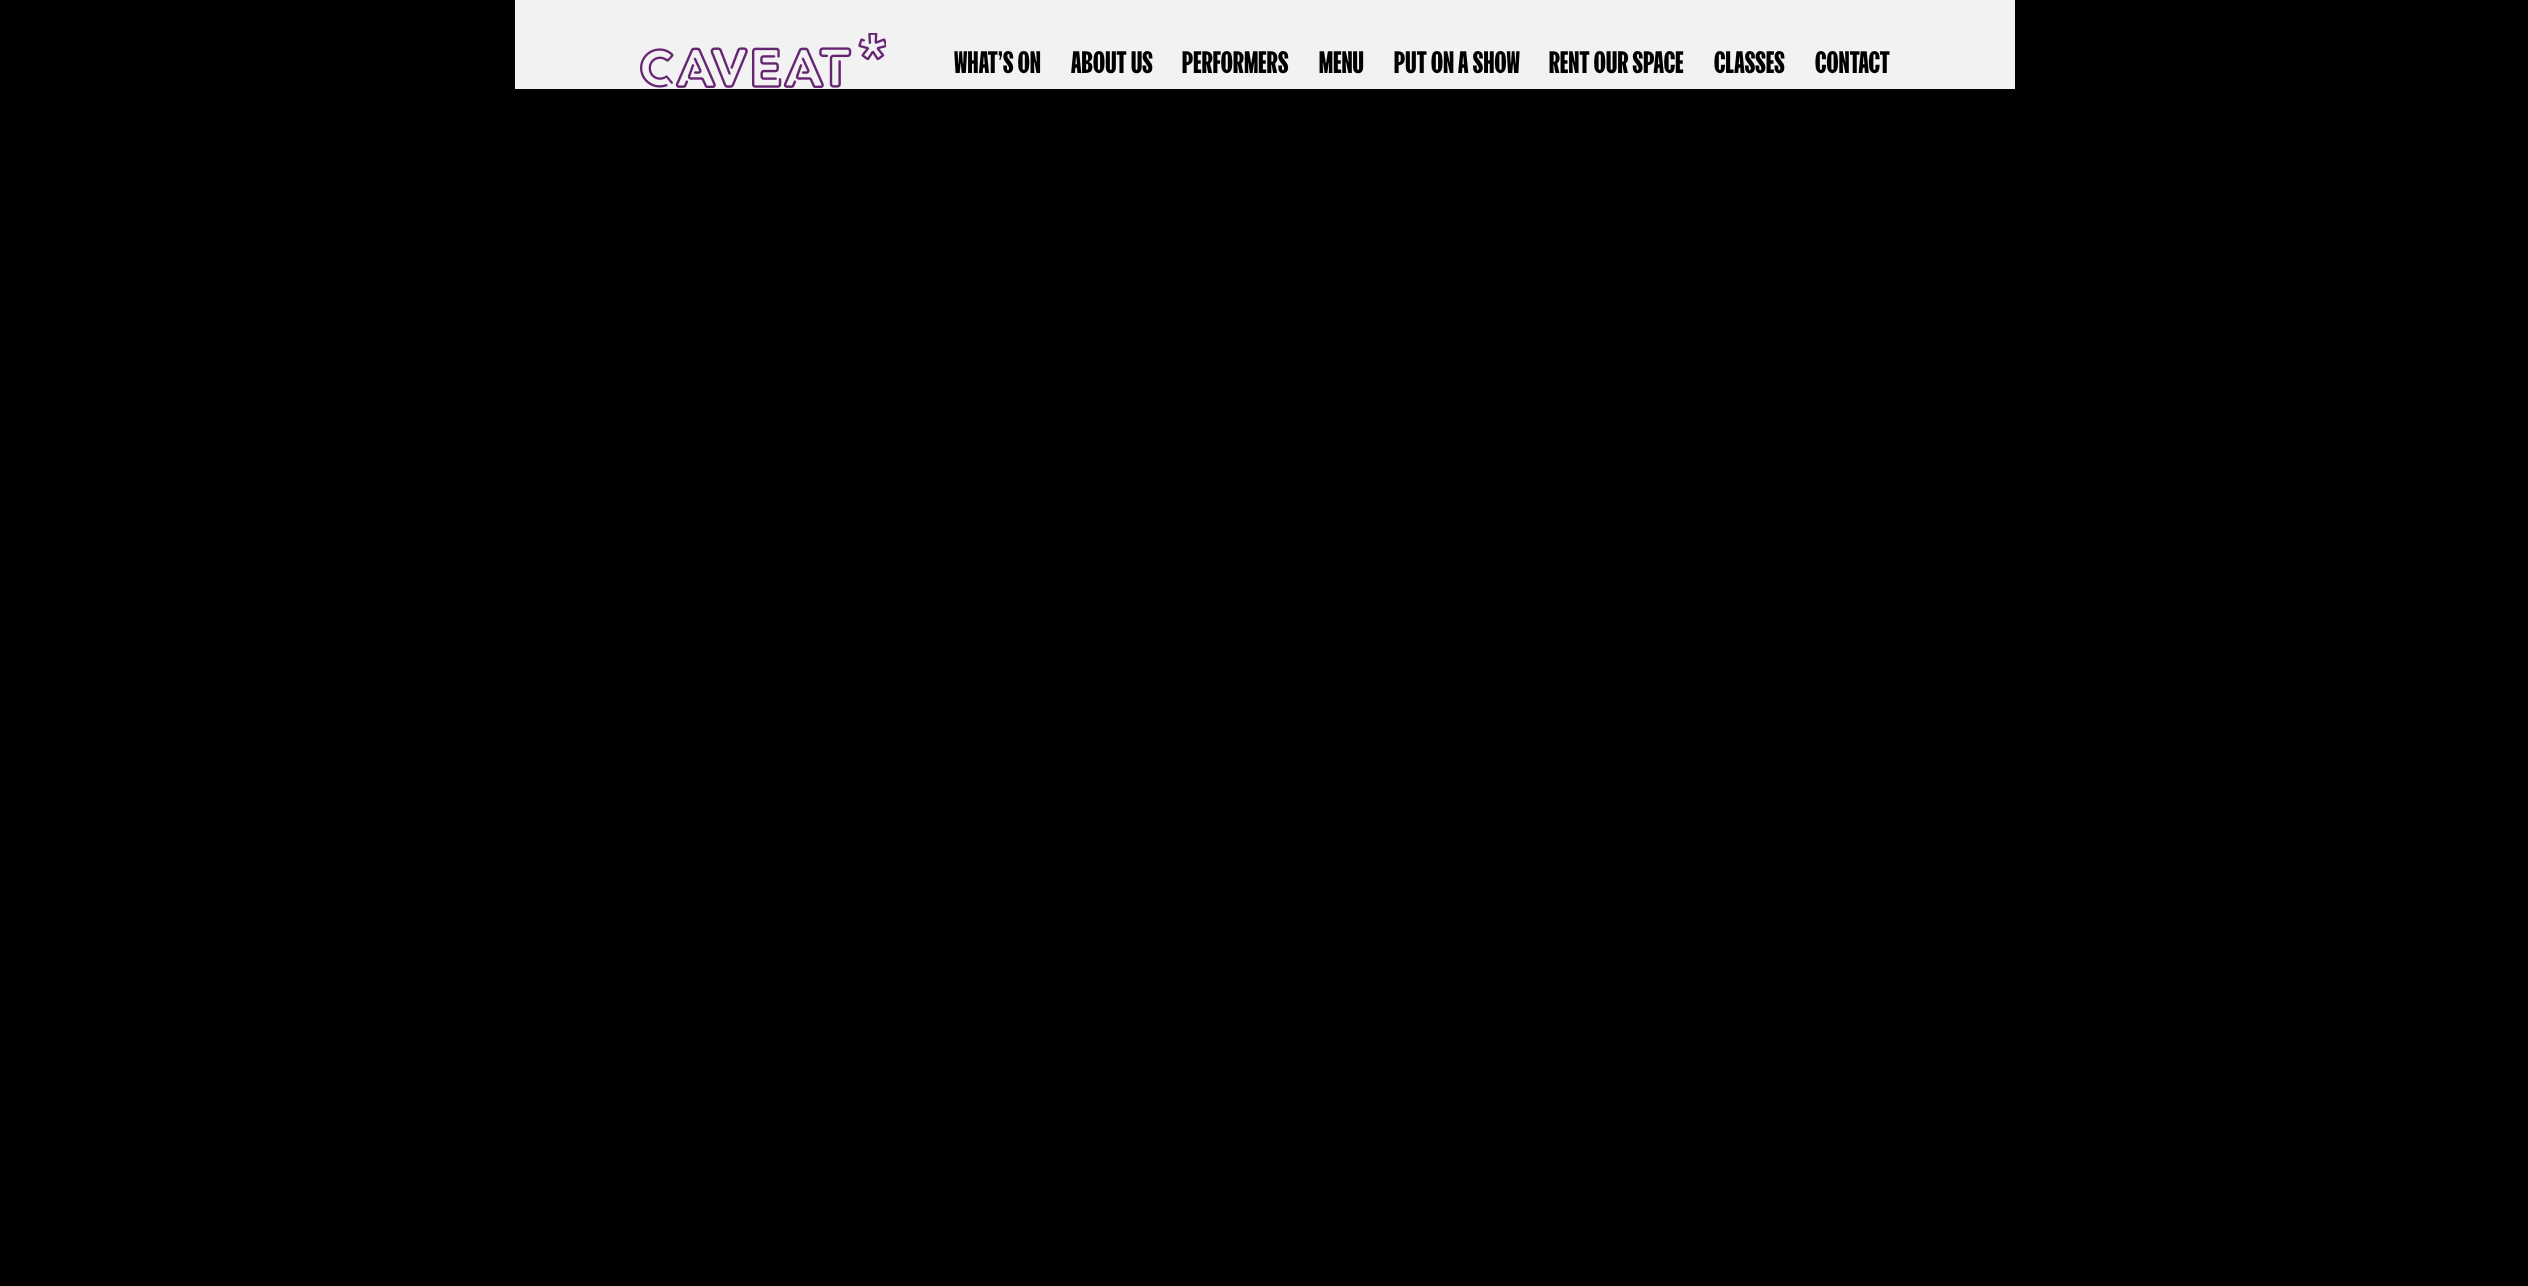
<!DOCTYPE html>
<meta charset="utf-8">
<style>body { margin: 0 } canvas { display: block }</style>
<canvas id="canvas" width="2528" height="1286"></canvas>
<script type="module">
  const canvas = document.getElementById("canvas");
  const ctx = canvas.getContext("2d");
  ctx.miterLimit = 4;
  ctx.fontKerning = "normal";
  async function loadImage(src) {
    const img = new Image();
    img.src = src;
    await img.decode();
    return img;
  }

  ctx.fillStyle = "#000000";
  ctx.fillRect(0, 0, 2528, 1286);
  ctx.fillStyle = "#f2f2f2";
  ctx.fillRect(515, 0, 1500, 89);
  ctx.drawImage(await loadImage("img1.png"), 640, 33, 246, 55);
  ctx.letterSpacing = "0.25px";
  ctx.font = "30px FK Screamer";
  ctx.fillStyle = "#000000";
  ctx.fillText("WHAT'S ON", 954, 73);
  ctx.fillText("ABOUT US", 1071, 73);
  ctx.fillText("PERFORMERS", 1182, 73);
  ctx.fillText("MENU", 1319, 73);
  ctx.fillText("PUT ON A SHOW", 1394, 73);
  ctx.fillText("RENT OUR SPACE", 1549, 73);
  ctx.fillText("CLASSES", 1714, 73);
  ctx.fillText("CONTACT", 1815, 73);
</script>
